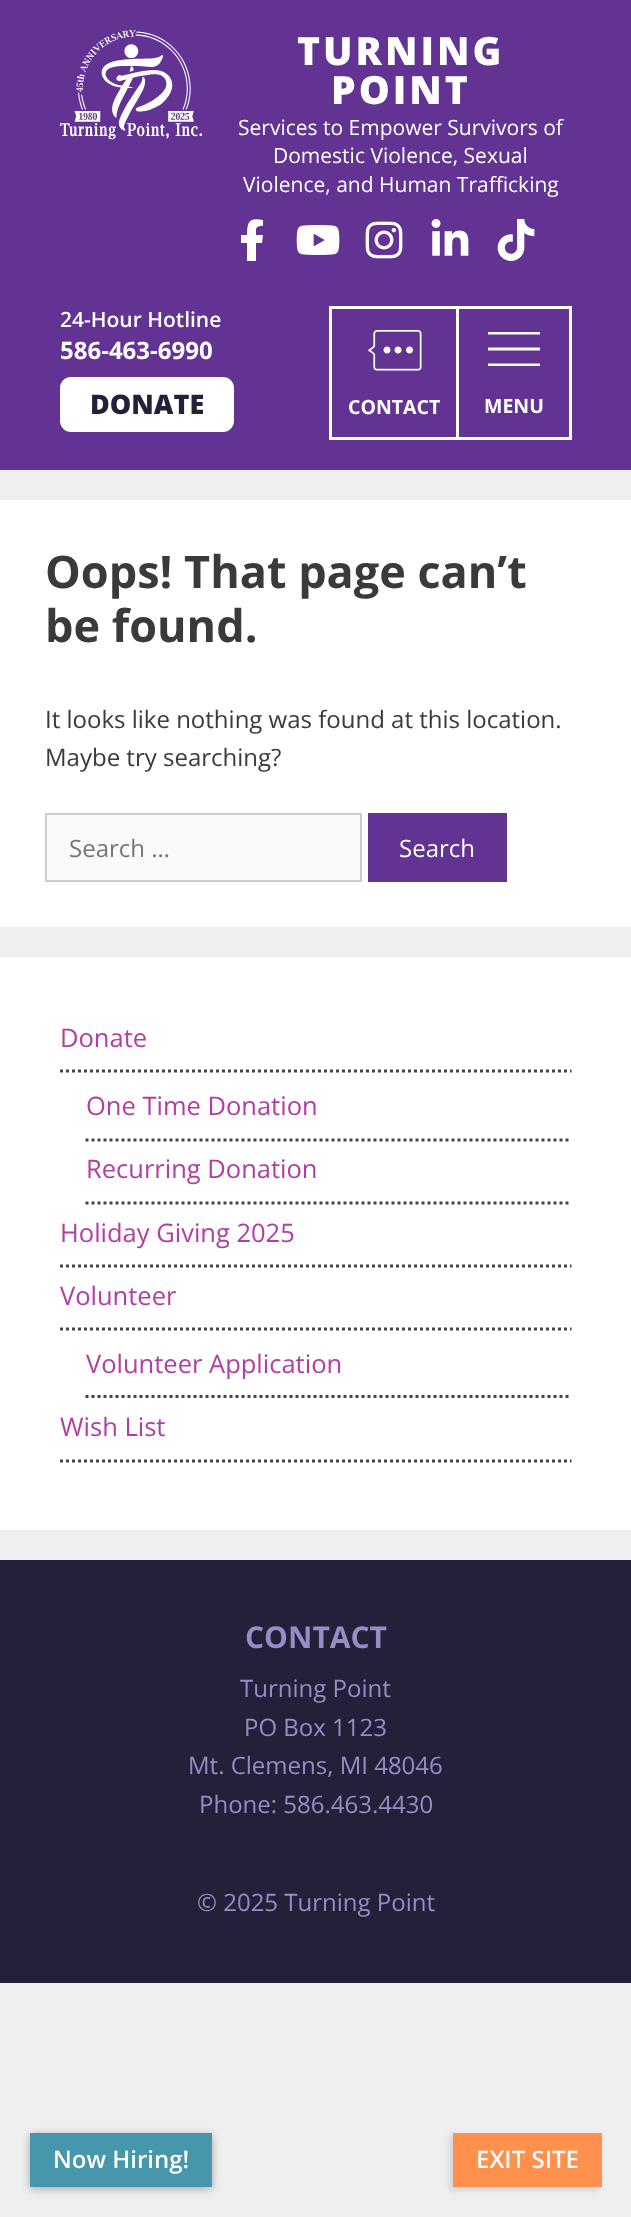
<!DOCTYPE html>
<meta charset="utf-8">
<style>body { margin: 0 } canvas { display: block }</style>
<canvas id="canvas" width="631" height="2217"></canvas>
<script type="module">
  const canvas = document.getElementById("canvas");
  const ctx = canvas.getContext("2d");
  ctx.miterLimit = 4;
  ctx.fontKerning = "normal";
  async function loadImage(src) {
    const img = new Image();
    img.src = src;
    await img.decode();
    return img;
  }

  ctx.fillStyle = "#efefef";
  ctx.fillRect(0, 0, 631, 2217);
  ctx.fillStyle = "#633394";
  ctx.fillRect(0, 0, 631, 470);
  ctx.drawImage(await loadImage("img1.png"), 60, 30, 142, 110);
  ctx.letterSpacing = "3px";
  ctx.font = "800 39px Open Sans";
  ctx.fillStyle = "#ffffff";
  ctx.fillText("TURNING", 297, 65);
  ctx.fillText("POINT", 331, 104);
  ctx.letterSpacing = "0px";
  ctx.font = "21px Open Sans";
  ctx.fillText("Services to Empower Survivors of", 238, 135);
  ctx.fillText("Domestic Violence, Sexual", 273, 163);
  ctx.fillText("Violence, and Human Trafficking", 243, 192);
  ctx.beginPath();
  ctx.moveTo(262, 243);
  ctx.lineTo(263, 235);
  ctx.lineTo(256, 235);
  ctx.bezierCurveTo(256, 228, 255, 226, 263, 226);
  ctx.lineTo(263, 220);
  ctx.bezierCurveTo(249, 217, 247, 222, 247, 235);
  ctx.lineTo(241, 235);
  ctx.lineTo(241, 243);
  ctx.lineTo(247, 243);
  ctx.lineTo(247, 261);
  ctx.lineTo(256, 261);
  ctx.lineTo(256, 243);
  ctx.closePath();
  ctx.fill();
  ctx.drawImage(await loadImage("img2.png"), 296, 225, 44, 30);
  ctx.drawImage(await loadImage("img3.png"), 365, 221, 38, 38);
  ctx.drawImage(await loadImage("img4.png"), 431, 219, 38, 37);
  ctx.drawImage(await loadImage("img5.png"), 497, 219, 38, 42);
  ctx.font = "600 21px Open Sans";
  ctx.fillText("24-Hour Hotline", 60, 327);
  ctx.font = "bold 24px Open Sans";
  ctx.fillText("586-463-6990", 60, 359);
  ctx.beginPath();
  ctx.roundRect(60, 377, 174, 55, 11);
  ctx.fill();
  ctx.font = "800 27px Open Sans";
  ctx.fillStyle = "#24203a";
  ctx.fillText("DONATE", 90, 414);
  ctx.strokeStyle = "#ffffff";
  ctx.lineWidth = 3;
  ctx.strokeRect(330.5, 307.5, 127, 131);
  ctx.drawImage(await loadImage("img6.png"), 368, 330, 54, 41);
  ctx.font = "bold 19.5px Open Sans";
  ctx.fillStyle = "#ffffff";
  ctx.fillText("CONTACT", 348, 414);
  ctx.fillRect(459, 306, 113, 3);
  ctx.fillRect(569, 306, 3, 134);
  ctx.fillRect(459, 437, 113, 3);
  ctx.save();
  ctx.beginPath();
  ctx.rect(488, 332, 52, 34);
  ctx.clip();
  ctx.beginPath();
  ctx.moveTo(488, 333);
  ctx.lineTo(541.5, 333);
  ctx.moveTo(488, 365);
  ctx.lineTo(541.5, 365);
  ctx.moveTo(488, 349);
  ctx.lineTo(541.5, 349);
  ctx.lineWidth = 2.9;
  ctx.stroke();
  ctx.restore();
  ctx.fillText("MENU", 484, 413);
  ctx.fillRect(0, 500, 631, 427);
  ctx.font = "bold 45px Open Sans";
  ctx.fillStyle = "#3a3a3a";
  ctx.fillText("Oops! That page can’t", 45, 588);
  ctx.fillText("be found.", 45, 642);
  ctx.font = "24px Open Sans";
  ctx.fillText("It looks like nothing was found at this location.", 45, 728);
  ctx.fillText("Maybe try searching?", 45, 766);
  ctx.fillStyle = "#fafafa";
  ctx.beginPath();
  ctx.rect(46, 814, 315, 67);
  ctx.fill();
  ctx.strokeStyle = "#cccccc";
  ctx.lineWidth = 2;
  ctx.stroke();
  ctx.fillStyle = "#757575";
  ctx.fillText("Search …", 69, 857);
  ctx.fillStyle = "#633394";
  ctx.fillRect(368, 813, 139, 69);
  ctx.fillStyle = "#ffffff";
  ctx.fillText("Search", 399, 857);
  ctx.fillRect(0, 957, 631, 573);
  ctx.beginPath();
  ctx.moveTo(60, 1071);
  ctx.lineTo(571.5, 1071);
  ctx.strokeStyle = "#444444";
  ctx.lineWidth = 3;
  ctx.setLineDash([3, 3]);
  ctx.stroke();
  ctx.font = "25.5px Open Sans";
  ctx.fillStyle = "#b23da3";
  ctx.fillText("Donate", 60, 1047);
  ctx.beginPath();
  ctx.moveTo(85.5, 1140);
  ctx.lineTo(571.5, 1140);
  ctx.stroke();
  ctx.fillText("One Time Donation", 86, 1115);
  ctx.beginPath();
  ctx.moveTo(85.5, 1203);
  ctx.lineTo(571.5, 1203);
  ctx.stroke();
  ctx.fillText("Recurring Donation", 86, 1178);
  ctx.beginPath();
  ctx.moveTo(60, 1266);
  ctx.lineTo(571.5, 1266);
  ctx.stroke();
  ctx.fillText("Holiday Giving 2025", 60, 1242);
  ctx.beginPath();
  ctx.moveTo(60, 1329);
  ctx.lineTo(571.5, 1329);
  ctx.stroke();
  ctx.fillText("Volunteer", 60, 1305);
  ctx.beginPath();
  ctx.moveTo(85.5, 1396.5);
  ctx.lineTo(571.5, 1396.5);
  ctx.stroke();
  ctx.fillText("Volunteer Application", 86, 1373);
  ctx.beginPath();
  ctx.moveTo(60, 1461);
  ctx.lineTo(571.5, 1461);
  ctx.stroke();
  ctx.fillText("Wish List", 60, 1436);
  ctx.fillStyle = "#24203a";
  ctx.fillRect(0, 1560, 631, 423);
  ctx.font = "bold 30px Open Sans";
  ctx.fillStyle = "#958dc5";
  ctx.fillText("CONTACT", 245, 1648);
  ctx.font = "24px Open Sans";
  ctx.fillText("Turning Point", 240, 1697);
  ctx.fillText("PO Box 1123", 244, 1736);
  ctx.fillText("Mt. Clemens, MI 48046", 188, 1774);
  ctx.fillText("Phone: 586.463.4430", 199, 1813);
  ctx.fillText("© 2025 Turning Point", 197, 1911);
  ctx.fillStyle = "rgba(0, 0, 0, 0.3)";
  ctx.filter = "blur(4px)";
  ctx.beginPath();
  ctx.rect(30, 2135, 182, 54);
  ctx.fill();
  ctx.filter = "none";
  ctx.fillStyle = "#4696ac";
  ctx.fillRect(30, 2133, 182, 54);
  ctx.font = "600 24px Open Sans";
  ctx.fillStyle = "#ffffff";
  ctx.fillText("Now Hiring!", 53, 2168);
  ctx.fillStyle = "rgba(77, 71, 115, 0.2)";
  ctx.filter = "blur(3px)";
  ctx.beginPath();
  ctx.rect(450, 2136, 149, 54);
  ctx.fill();
  ctx.filter = "none";
  ctx.fillStyle = "#ff914d";
  ctx.fillRect(453, 2133, 149, 54);
  ctx.fillStyle = "#ffffff";
  ctx.fillText("EXIT SITE", 476, 2168);
</script>
